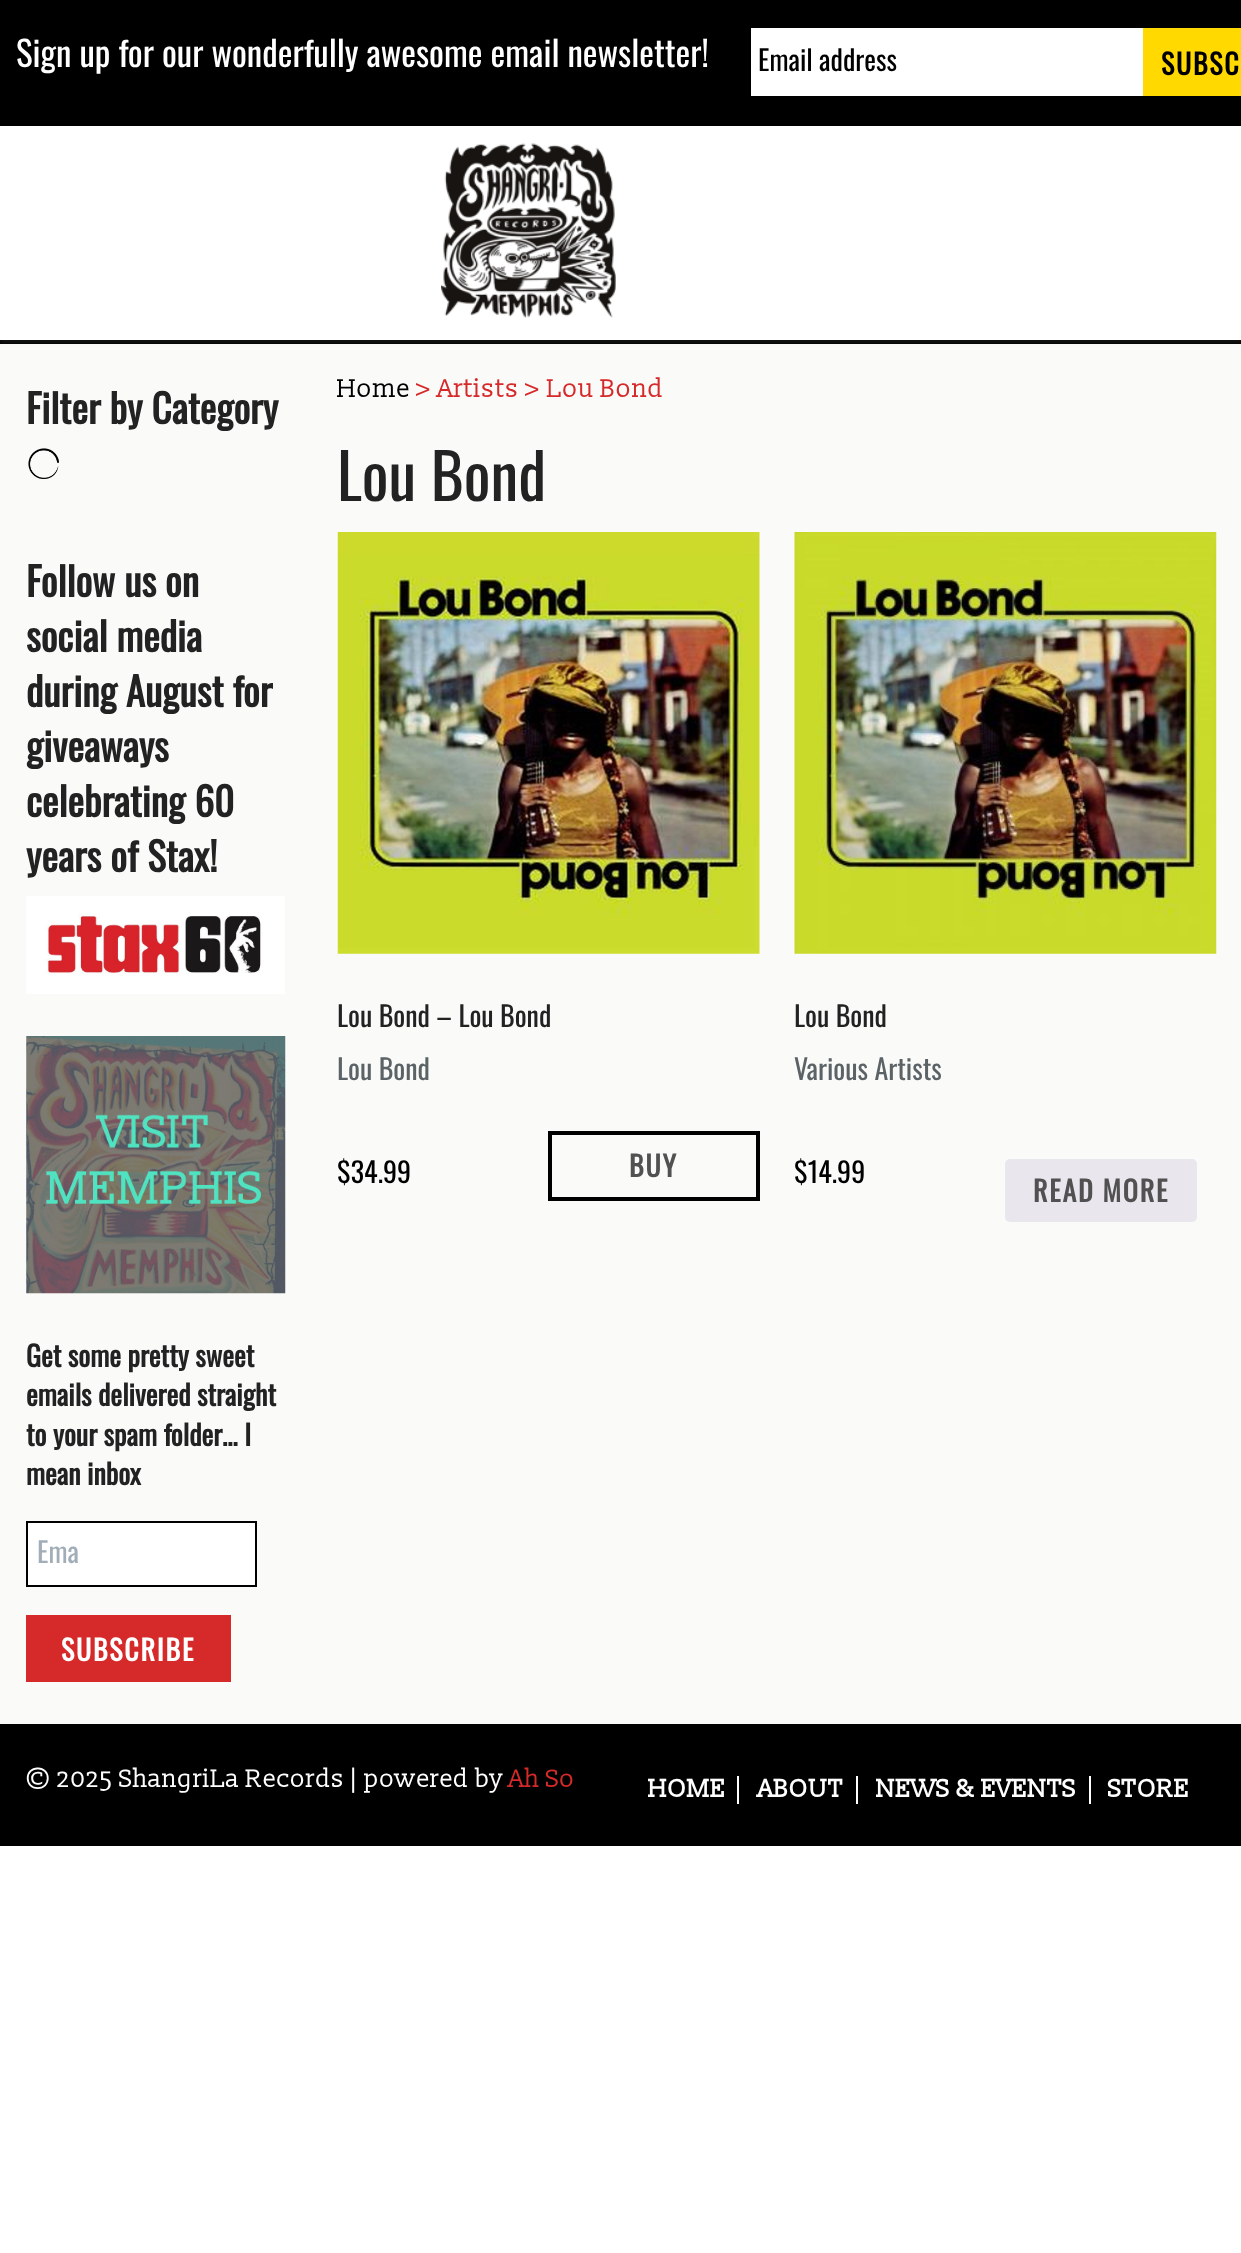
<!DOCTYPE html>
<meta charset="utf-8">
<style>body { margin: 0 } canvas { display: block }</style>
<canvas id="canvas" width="1241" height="2253"></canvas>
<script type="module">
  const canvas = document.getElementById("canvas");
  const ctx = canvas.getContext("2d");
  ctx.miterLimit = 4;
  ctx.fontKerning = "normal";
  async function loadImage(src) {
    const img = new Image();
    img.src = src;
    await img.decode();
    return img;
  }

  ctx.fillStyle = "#ffffff";
  ctx.fillRect(0, 0, 1241, 2253);
  ctx.fillStyle = "#fafaf9";
  ctx.fillRect(0, 344, 1241, 1380);
  ctx.fillStyle = "#000000";
  ctx.fillRect(0, 340, 1241, 4);
  ctx.fillRect(0, 0, 1241, 126);
  ctx.font = "35px Oswald";
  ctx.fillStyle = "#ffffff";
  ctx.fillText("Sign up for our wonderfully awesome email newsletter!", 16, 67);
  ctx.fillRect(751, 28, 392, 68);
  ctx.font = "28px Oswald";
  ctx.fillStyle = "#000000";
  ctx.fillText("Email address", 758, 71);
  ctx.fillStyle = "#ffd900";
  ctx.fillRect(1143, 28, 98, 68);
  ctx.letterSpacing = "1.75px";
  ctx.font = "bold 28px Oswald";
  ctx.fillStyle = "#000000";
  ctx.fillText("SUBSC", 1161, 75);
  ctx.fillStyle = "rgba(190, 193, 194, 0.1)";
  ctx.filter = "blur(2px)";
  ctx.beginPath();
  ctx.rect(0, 130, 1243, 213);
  ctx.fill();
  ctx.filter = "none";
  ctx.fillStyle = "#ffffff";
  ctx.fillRect(0, 129, 1241, 211);
  ctx.drawImage(await loadImage("img1.png"), 441, 143, 175, 175);
  ctx.letterSpacing = "0px";
  ctx.font = "bold 39.25px Oswald";
  ctx.fillStyle = "#222222";
  ctx.fillText("Filter by Category", 26, 424);
  ctx.drawImage(await loadImage("img2.png"), 28, 448, 31, 31);
  ctx.fillText("Follow us on", 26, 597);
  ctx.fillText("social media", 26, 652);
  ctx.fillText("during August for", 26, 707);
  ctx.fillText("giveaways", 26, 762);
  ctx.fillText("celebrating 60", 26, 817);
  ctx.fillText("years of Stax!", 26, 872);
  ctx.drawImage(await loadImage("img3.png"), 26, 896, 259, 98);
  ctx.drawImage(await loadImage("img4.png"), 26, 1036, 260, 258);
  ctx.font = "bold 28px Oswald";
  ctx.fillText("Get some pretty sweet", 26, 1367);
  ctx.fillText("emails delivered straight", 26, 1406);
  ctx.fillText("to your spam folder… I", 26, 1446);
  ctx.fillText("mean inbox", 26, 1485);
  ctx.fillStyle = "#ffffff";
  ctx.beginPath();
  ctx.rect(27, 1522, 229, 64);
  ctx.fill();
  ctx.strokeStyle = "#000000";
  ctx.lineWidth = 2;
  ctx.stroke();
  ctx.font = "28px Oswald";
  ctx.fillStyle = "#a1aeb8";
  ctx.fillText("Ema", 37, 1563);
  ctx.fillStyle = "#d62929";
  ctx.fillRect(26, 1615, 205, 67);
  ctx.letterSpacing = "1.75px";
  ctx.font = "bold 28px Oswald";
  ctx.fillStyle = "#ffffff";
  ctx.fillText("SUBSCRIBE", 61, 1661);
  ctx.letterSpacing = "0px";
  ctx.font = "25.75px 'Slabo 13px'";
  ctx.fillStyle = "#000000";
  ctx.fillText("Home", 337, 397);
  ctx.fillStyle = "#d62929";
  ctx.fillText("> Artists > Lou Bond", 416, 397);
  ctx.font = "63px Oswald";
  ctx.fillStyle = "#222222";
  ctx.fillText("Lou Bond", 337, 501);
  ctx.drawImage(await loadImage("img5.png"), 337, 532, 423, 422);
  ctx.font = "28px Oswald";
  ctx.fillText("Lou Bond – Lou Bond", 337, 1027);
  ctx.fillStyle = "#5c6366";
  ctx.fillText("Lou Bond", 337, 1080);
  ctx.fillStyle = "#000000";
  ctx.fillText("$34.99", 337, 1183);
  ctx.lineWidth = 4;
  ctx.strokeRect(550, 1133, 208, 66);
  ctx.letterSpacing = "1.75px";
  ctx.font = "bold 28px Oswald";
  ctx.fillStyle = "#515151";
  ctx.fillText("BUY", 629, 1177);
  ctx.drawImage(await loadImage("img6.png"), 794, 532, 423, 422);
  ctx.letterSpacing = "0px";
  ctx.font = "28px Oswald";
  ctx.fillStyle = "#222222";
  ctx.fillText("Lou Bond", 794, 1027);
  ctx.fillStyle = "#5c6366";
  ctx.fillText("Various Artists", 794, 1080);
  ctx.fillStyle = "#000000";
  ctx.fillText("$14.99", 794, 1183);
  ctx.fillStyle = "#e9e6ed";
  ctx.beginPath();
  ctx.roundRect(1005, 1159, 192, 63, 5);
  ctx.fill();
  ctx.letterSpacing = "1.75px";
  ctx.font = "bold 28px Oswald";
  ctx.fillStyle = "#515151";
  ctx.fillText("READ MORE", 1033, 1202);
  ctx.fillStyle = "#000000";
  ctx.fillRect(0, 1724, 1241, 122);
  ctx.letterSpacing = "0px";
  ctx.font = "25.25px 'Slabo 13px'";
  ctx.fillStyle = "#ffffff";
  ctx.fillText("© 2025 ShangriLa Records | powered by", 26, 1787);
  ctx.fillStyle = "#d62929";
  ctx.fillText("Ah So", 509, 1787);
  ctx.fillStyle = "#ffffff";
  ctx.fillRect(737, 1776, 2, 28);
  ctx.font = "bold 25.25px 'Slabo 13px'";
  ctx.fillText("HOME", 648, 1797);
  ctx.fillRect(856, 1776, 2, 28);
  ctx.fillText("ABOUT", 758, 1797);
  ctx.fillRect(1089, 1776, 2, 28);
  ctx.fillText("NEWS & EVENTS", 876, 1797);
  ctx.fillText("STORE", 1108, 1797);
</script>
